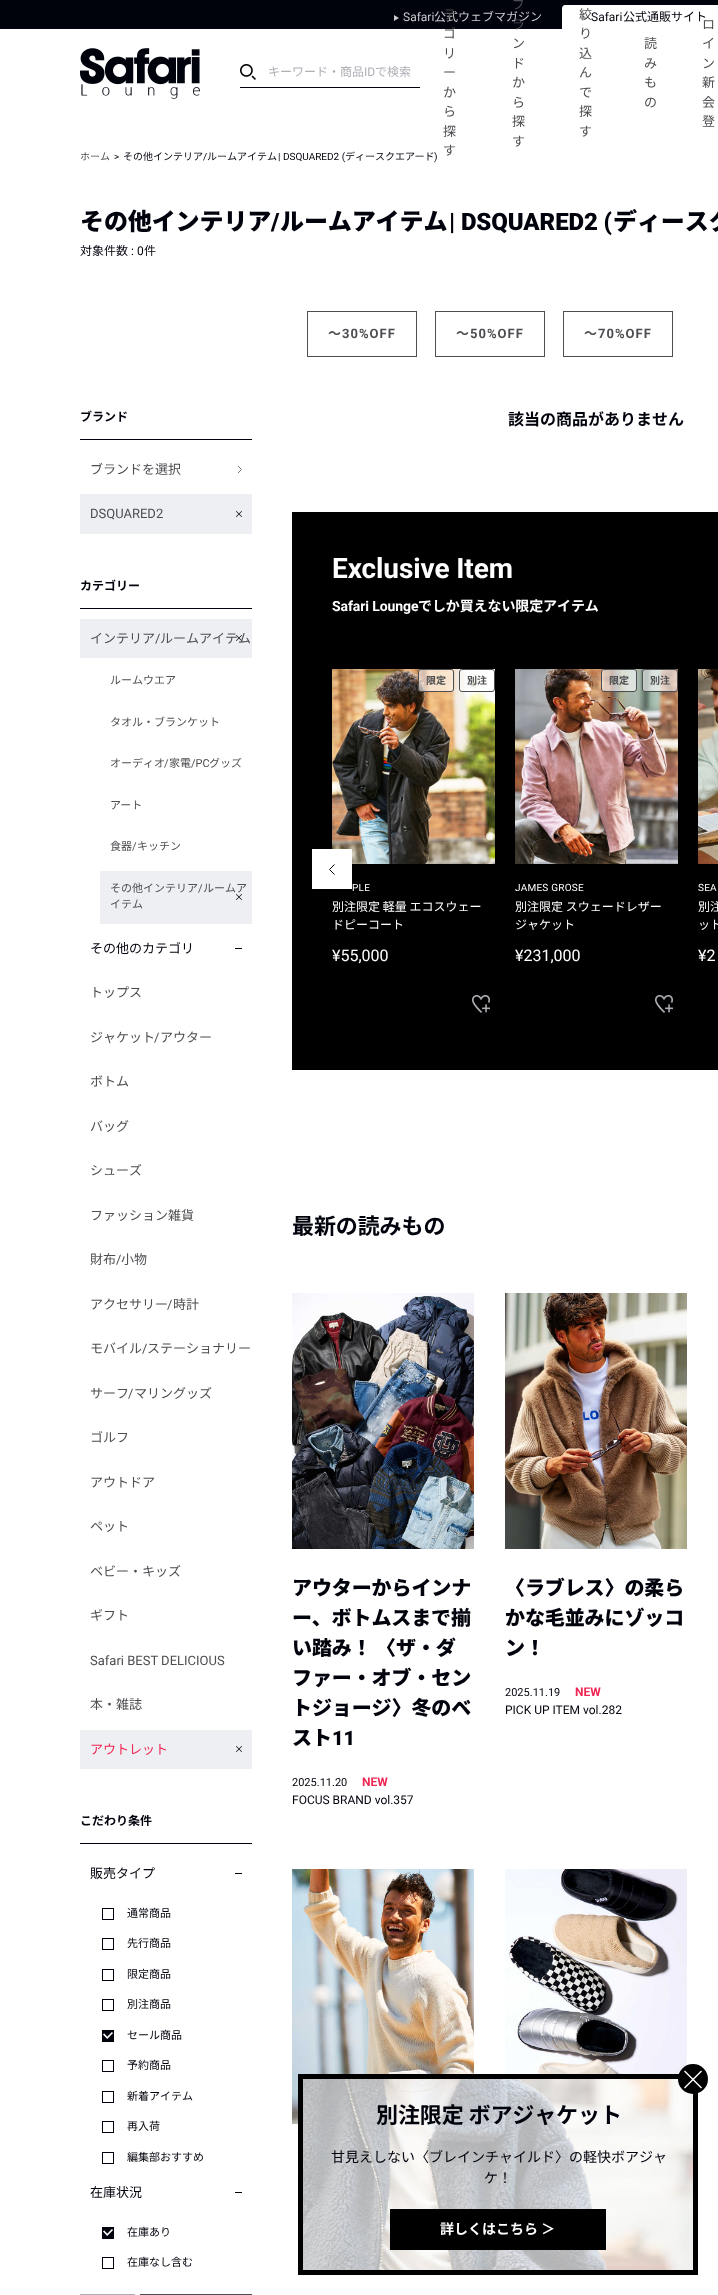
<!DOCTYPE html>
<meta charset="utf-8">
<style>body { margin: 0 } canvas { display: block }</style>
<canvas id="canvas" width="718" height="2295"></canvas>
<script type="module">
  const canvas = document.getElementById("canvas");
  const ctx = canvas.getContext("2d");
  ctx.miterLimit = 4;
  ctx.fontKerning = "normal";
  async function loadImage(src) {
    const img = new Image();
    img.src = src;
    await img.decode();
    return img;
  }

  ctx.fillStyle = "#ffffff";
  ctx.fillRect(0, 0, 718, 2295);
  ctx.font = "10px Noto Sans JP";
  ctx.fillStyle = "#4d4e51";
  ctx.fillText("ホーム", 80, 160);
  ctx.font = "10px Roboto";
  ctx.fillStyle = "#00020c";
  ctx.fillText(">", 114, 160);
  ctx.font = "10px Noto Sans JP";
  ctx.fillText("その他インテリア", 123, 160);
  ctx.font = "10px Roboto";
  ctx.fillText("/", 203, 160);
  ctx.font = "10px Noto Sans JP";
  ctx.fillText("ルームアイテム", 207, 160);
  ctx.font = "10px Roboto";
  ctx.fillText("| DSQUARED2 (", 278, 160);
  ctx.font = "10px Noto Sans JP";
  ctx.fillText("ディースクエアード", 345, 160);
  ctx.font = "10px Roboto";
  ctx.fillText(")", 434, 160);
  ctx.drawImage(await loadImage("img1.png"), 80, 48, 120, 51);
  ctx.drawImage(await loadImage("img2.png"), 240, 64, 16, 16);
  ctx.fillRect(240, 87, 180, 1);
  ctx.font = "12px Noto Sans JP";
  ctx.fillStyle = "#adafb5";
  ctx.fillText("キーワード・商品", 268, 76);
  ctx.font = "12px Roboto";
  ctx.fillText("ID", 364, 76);
  ctx.font = "12px Noto Sans JP";
  ctx.fillText("で検索", 375, 76);
  ctx.fillStyle = "#00020c";
  ctx.fillRect(0, 0, 718, 29);
  ctx.fillStyle = "#ccccce";
  ctx.fillText("公式ウェブマガジン", 434, 21);
  ctx.font = "13px Noto Sans JP";
  ctx.fillStyle = "#4d4e51";
  ctx.fillText("テ", 443, 19);
  ctx.fillText("ゴ", 443, 38);
  ctx.fillText("リ", 443, 58);
  ctx.fillText("ー", 443, 77);
  ctx.fillText("か", 443, 97);
  ctx.fillText("ら", 443, 116);
  ctx.fillText("探", 443, 136);
  ctx.fillText("す", 443, 155);
  ctx.fillText("ブ", 512, 9);
  ctx.fillText("ラ", 512, 29);
  ctx.fillText("ン", 512, 48);
  ctx.fillText("ド", 512, 68);
  ctx.fillText("か", 512, 87);
  ctx.fillText("ら", 512, 107);
  ctx.fillText("探", 512, 126);
  ctx.fillText("す", 512, 146);
  ctx.fillStyle = "#ffffff";
  ctx.beginPath();
  ctx.moveTo(565, 5);
  ctx.lineTo(718, 5);
  ctx.bezierCurveTo(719.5, 5, 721, 6.5, 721, 8);
  ctx.lineTo(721, 29);
  ctx.lineTo(562, 29);
  ctx.lineTo(562, 8);
  ctx.bezierCurveTo(562, 6.5, 563.5, 5, 565, 5);
  ctx.closePath();
  ctx.fill();
  ctx.fillStyle = "#adafb5";
  ctx.beginPath();
  ctx.moveTo(587, 18);
  ctx.lineTo(582, 21);
  ctx.lineTo(582, 15);
  ctx.closePath();
  ctx.fill("evenodd");
  ctx.font = "12px Roboto";
  ctx.fillStyle = "#00020c";
  ctx.fillText("Safari", 591, 21);
  ctx.font = "13px Noto Sans JP";
  ctx.fillStyle = "#4d4e51";
  ctx.fillText("絞", 579, 19);
  ctx.fillText("り", 579, 38);
  ctx.fillText("込", 579, 58);
  ctx.fillText("ん", 579, 77);
  ctx.fillText("で", 579, 97);
  ctx.fillText("探", 579, 116);
  ctx.fillText("す", 579, 136);
  ctx.fillText("読", 644, 48);
  ctx.fillText("み", 644, 68);
  ctx.fillText("も", 644, 87);
  ctx.fillText("の", 644, 107);
  ctx.fillText("ロ", 702, 29);
  ctx.fillText("イ", 702, 48);
  ctx.fillText("ン", 702, 68);
  ctx.fillText("新", 702, 87);
  ctx.fillText("会", 702, 107);
  ctx.fillText("登", 702, 126);
  ctx.fillStyle = "#ccccce";
  ctx.beginPath();
  ctx.moveTo(399, 18);
  ctx.lineTo(394, 21);
  ctx.lineTo(394, 15);
  ctx.closePath();
  ctx.fill("evenodd");
  ctx.font = "12px Roboto";
  ctx.fillText("Safari", 403, 21);
  ctx.font = "12px Noto Sans JP";
  ctx.fillStyle = "#00020c";
  ctx.fillText("公式通販サイト", 623, 21);
  ctx.letterSpacing = "-0.1px";
  ctx.font = "900 24px Noto Sans JP";
  ctx.fillText("その他インテリア", 80, 230);
  ctx.font = "900 24px Roboto";
  ctx.fillText("/", 271, 230);
  ctx.font = "900 24px Noto Sans JP";
  ctx.fillText("ルームアイテム", 280, 230);
  ctx.font = "900 24px Roboto";
  ctx.fillText("| DSQUARED2 (", 449, 230);
  ctx.font = "900 24px Noto Sans JP";
  ctx.fillText("ディースク", 613, 230);
  ctx.letterSpacing = "0px";
  ctx.font = "12px Noto Sans JP";
  ctx.fillText("対象件数", 80, 255);
  ctx.font = "12px Roboto";
  ctx.fillText(": 0", 131, 255);
  ctx.font = "12px Noto Sans JP";
  ctx.fillText("件", 144, 255);
  ctx.strokeStyle = "#4d4e51";
  ctx.strokeRect(307.5, 311.5, 109, 45);
  ctx.letterSpacing = "1px";
  ctx.font = "bold 13px Noto Sans JP";
  ctx.fillStyle = "#4d4e51";
  ctx.fillText("～", 328, 338);
  ctx.font = "bold 13px Roboto";
  ctx.fillText("30%OFF", 342, 338);
  ctx.strokeRect(435.5, 311.5, 109, 45);
  ctx.font = "bold 13px Noto Sans JP";
  ctx.fillText("～", 456, 338);
  ctx.font = "bold 13px Roboto";
  ctx.fillText("50%OFF", 470, 338);
  ctx.strokeRect(563.5, 311.5, 109, 45);
  ctx.font = "bold 13px Noto Sans JP";
  ctx.fillText("～", 584, 338);
  ctx.font = "bold 13px Roboto";
  ctx.fillText("70%OFF", 598, 338);
  ctx.fillStyle = "#00020c";
  ctx.fillRect(80, 439, 172, 1);
  ctx.letterSpacing = "0px";
  ctx.font = "bold 12px Noto Sans JP";
  ctx.fillText("ブランド", 80, 421);
  ctx.beginPath();
  ctx.moveTo(238, 466);
  ctx.lineTo(241.5, 469.5);
  ctx.lineTo(238, 473);
  ctx.strokeStyle = "#3a4047";
  ctx.lineWidth = 0.7;
  ctx.stroke();
  ctx.font = "13px Noto Sans JP";
  ctx.fillStyle = "#4d4e51";
  ctx.fillText("ブランドを選択", 90, 474);
  ctx.fillStyle = "#eeeff3";
  ctx.fillRect(80, 494, 172, 40);
  ctx.drawImage(await loadImage("img3.png"), 236, 511, 6, 6);
  ctx.font = "13px Roboto";
  ctx.fillStyle = "#4d4e51";
  ctx.fillText("DSQUARED2", 90, 518);
  ctx.fillStyle = "#00020c";
  ctx.fillRect(80, 608, 172, 1);
  ctx.font = "bold 12px Noto Sans JP";
  ctx.fillText("カテゴリー", 80, 590);
  ctx.fillStyle = "#eeeff3";
  ctx.fillRect(80, 619, 172, 39);
  ctx.drawImage(await loadImage("img3.png"), 236, 635, 6, 6);
  ctx.font = "13px Noto Sans JP";
  ctx.fillStyle = "#4d4e51";
  ctx.fillText("インテリア", 90, 643);
  ctx.font = "13px Roboto";
  ctx.fillText("/", 155, 643);
  ctx.font = "13px Noto Sans JP";
  ctx.fillText("ルームアイテム", 160, 643);
  ctx.font = "11px Noto Sans JP";
  ctx.fillText("ルームウエア", 110, 684);
  ctx.fillText("タオル・ブランケット", 110, 726);
  ctx.fillText("オーディオ", 110, 767);
  ctx.font = "11px Roboto";
  ctx.fillText("/", 164, 767);
  ctx.font = "11px Noto Sans JP";
  ctx.fillText("家電", 169, 767);
  ctx.font = "11px Roboto";
  ctx.fillText("/PC", 191, 767);
  ctx.font = "11px Noto Sans JP";
  ctx.fillText("グッズ", 209, 767);
  ctx.fillText("アート", 110, 809);
  ctx.fillText("食器", 110, 850);
  ctx.font = "11px Roboto";
  ctx.fillText("/", 132, 850);
  ctx.font = "11px Noto Sans JP";
  ctx.fillText("キッチン", 137, 850);
  ctx.fillStyle = "#eeeff3";
  ctx.fillRect(100, 871, 152, 53);
  ctx.drawImage(await loadImage("img3.png"), 236, 894, 6, 6);
  ctx.fillStyle = "#4d4e51";
  ctx.fillText("その他インテリア", 110, 892);
  ctx.font = "11px Roboto";
  ctx.fillText("/", 198, 892);
  ctx.font = "11px Noto Sans JP";
  ctx.fillText("ルームア", 203, 892);
  ctx.fillText("イテム", 110, 908);
  ctx.fillStyle = "#010101";
  ctx.fillRect(235, 948, 7, 1);
  ctx.font = "13px Noto Sans JP";
  ctx.fillStyle = "#00020c";
  ctx.fillText("その他のカテゴリ", 90, 953);
  ctx.fillStyle = "#4d4e51";
  ctx.fillText("トップス", 90, 997);
  ctx.fillText("ジャケット", 90, 1042);
  ctx.font = "13px Roboto";
  ctx.fillText("/", 154, 1042);
  ctx.font = "13px Noto Sans JP";
  ctx.fillText("アウター", 160, 1042);
  ctx.fillText("ボトム", 90, 1086);
  ctx.fillText("バッグ", 90, 1131);
  ctx.fillText("シューズ", 90, 1175);
  ctx.fillText("ファッション雑貨", 90, 1220);
  ctx.fillText("財布", 90, 1264);
  ctx.font = "13px Roboto";
  ctx.fillText("/", 116, 1264);
  ctx.font = "13px Noto Sans JP";
  ctx.fillText("小物", 121, 1264);
  ctx.fillText("アクセサリー", 90, 1309);
  ctx.font = "13px Roboto";
  ctx.fillText("/", 167, 1309);
  ctx.font = "13px Noto Sans JP";
  ctx.fillText("時計", 173, 1309);
  ctx.fillText("モバイル", 90, 1353);
  ctx.font = "13px Roboto";
  ctx.fillText("/", 142, 1353);
  ctx.font = "13px Noto Sans JP";
  ctx.fillText("ステーショナリー", 147, 1353);
  ctx.fillText("サーフ", 90, 1398);
  ctx.font = "13px Roboto";
  ctx.fillText("/", 128, 1398);
  ctx.font = "13px Noto Sans JP";
  ctx.fillText("マリングッズ", 134, 1398);
  ctx.fillText("ゴルフ", 90, 1442);
  ctx.fillText("アウトドア", 90, 1487);
  ctx.fillText("ペット", 90, 1531);
  ctx.fillText("ベビー・キッズ", 90, 1576);
  ctx.fillText("ギフト", 90, 1620);
  ctx.font = "13px Roboto";
  ctx.fillText("Safari BEST DELICIOUS", 90, 1665);
  ctx.font = "13px Noto Sans JP";
  ctx.fillText("本・雑誌", 90, 1709);
  ctx.fillStyle = "#eeeff3";
  ctx.fillRect(80, 1730, 172, 39);
  ctx.drawImage(await loadImage("img3.png"), 236, 1746, 6, 6);
  ctx.fillStyle = "#ef2654";
  ctx.fillText("アウトレット", 90, 1754);
  ctx.fillStyle = "#00020c";
  ctx.fillRect(80, 1843, 172, 1);
  ctx.font = "bold 12px Noto Sans JP";
  ctx.fillText("こだわり条件", 80, 1825);
  ctx.fillStyle = "#010101";
  ctx.fillRect(235, 1873, 7, 1);
  ctx.font = "13px Noto Sans JP";
  ctx.fillStyle = "#00020c";
  ctx.fillText("販売タイプ", 90, 1878);
  ctx.strokeStyle = "#00020c";
  ctx.lineWidth = 1;
  ctx.strokeRect(102.5, 1908.5, 11, 11);
  ctx.font = "11px Noto Sans JP";
  ctx.fillText("通常商品", 127, 1917);
  ctx.strokeRect(102.5, 1938.5, 11, 11);
  ctx.fillText("先行商品", 127, 1947);
  ctx.strokeRect(102.5, 1969.5, 11, 11);
  ctx.fillText("限定商品", 127, 1978);
  ctx.strokeRect(102.5, 1999.5, 11, 11);
  ctx.fillText("別注商品", 127, 2008);
  ctx.fillRect(102, 2030, 12, 12);
  ctx.drawImage(await loadImage("img4.png"), 103, 2032, 10, 7);
  ctx.fillText("セール商品", 127, 2039);
  ctx.strokeRect(102.5, 2060.5, 11, 11);
  ctx.fillText("予約商品", 127, 2069);
  ctx.strokeRect(102.5, 2091.5, 11, 11);
  ctx.fillText("新着アイテム", 127, 2100);
  ctx.strokeRect(102.5, 2121.5, 11, 11);
  ctx.fillText("再入荷", 127, 2130);
  ctx.strokeRect(102.5, 2152.5, 11, 11);
  ctx.fillText("編集部おすすめ", 127, 2161);
  ctx.fillStyle = "#010101";
  ctx.fillRect(235, 2192, 7, 1);
  ctx.font = "13px Noto Sans JP";
  ctx.fillStyle = "#00020c";
  ctx.fillText("在庫状況", 90, 2197);
  ctx.fillRect(102, 2227, 12, 12);
  ctx.drawImage(await loadImage("img4.png"), 103, 2229, 10, 7);
  ctx.font = "11px Noto Sans JP";
  ctx.fillText("在庫あり", 127, 2236);
  ctx.strokeRect(102.5, 2257.5, 11, 11);
  ctx.fillText("在庫なし含む", 127, 2266);
  ctx.strokeStyle = "#adafb5";
  ctx.strokeRect(80.5, 2294.5, 54, 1);
  ctx.strokeStyle = "#4d4e51";
  ctx.strokeRect(140.5, 2294.5, 111, 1);
  ctx.font = "bold 16px Noto Sans JP";
  ctx.fillText("該当の商品がありません", 508, 425);
  ctx.fillStyle = "#000000";
  ctx.fillRect(292, 512, 426, 558);
  ctx.letterSpacing = "-0.1px";
  ctx.font = "bold 28px Roboto";
  ctx.fillStyle = "#ffffff";
  ctx.fillText("Exclusive Item", 332, 578);
  ctx.font = "bold 14px Roboto";
  ctx.fillText("Safari Lounge", 332, 611);
  ctx.font = "bold 14px Noto Sans JP";
  ctx.fillText("でしか買えない限定アイテム", 418, 611);
  ctx.drawImage(await loadImage("img5.png"), 332, 669, 163, 195);
  ctx.fillStyle = "rgba(255, 255, 255, 0.6)";
  ctx.beginPath();
  ctx.roundRect(418.5, 669.5, 35, 22, 2.5);
  ctx.fill();
  ctx.stroke();
  ctx.letterSpacing = "0px";
  ctx.font = "bold 10px Noto Sans JP";
  ctx.fillStyle = "#4d4e51";
  ctx.fillText("限定", 426, 684);
  ctx.fillStyle = "rgba(255, 255, 255, 0.6)";
  ctx.beginPath();
  ctx.roundRect(459.5, 669.5, 35, 22, 2.5);
  ctx.fill();
  ctx.stroke();
  ctx.fillStyle = "#4d4e51";
  ctx.fillText("別注", 467, 684);
  ctx.letterSpacing = "0.25px";
  ctx.font = "10px Roboto";
  ctx.fillStyle = "#ffffff";
  ctx.fillText("PLE", 352, 891);
  ctx.letterSpacing = "0px";
  ctx.font = "12px Noto Sans JP";
  ctx.fillText("別注限定 軽量 エコスウェー", 332, 911);
  ctx.fillText("ドピーコート", 332, 929);
  ctx.font = "16px Roboto";
  ctx.fillText("¥55,000", 332, 961);
  ctx.drawImage(await loadImage("img6.png"), 472, 995, 18, 18);
  ctx.drawImage(await loadImage("img7.png"), 515, 669, 163, 195);
  ctx.fillStyle = "rgba(255, 255, 255, 0.6)";
  ctx.beginPath();
  ctx.roundRect(601.5, 669.5, 35, 22, 2.5);
  ctx.fill();
  ctx.stroke();
  ctx.font = "bold 10px Noto Sans JP";
  ctx.fillStyle = "#4d4e51";
  ctx.fillText("限定", 609, 684);
  ctx.fillStyle = "rgba(255, 255, 255, 0.6)";
  ctx.beginPath();
  ctx.roundRect(642.5, 669.5, 35, 22, 2.5);
  ctx.fill();
  ctx.stroke();
  ctx.fillStyle = "#4d4e51";
  ctx.fillText("別注", 650, 684);
  ctx.letterSpacing = "0.25px";
  ctx.font = "10px Roboto";
  ctx.fillStyle = "#ffffff";
  ctx.fillText("JAMES GROSE", 515, 891);
  ctx.letterSpacing = "0px";
  ctx.font = "12px Noto Sans JP";
  ctx.fillText("別注限定 スウェードレザー", 515, 911);
  ctx.fillText("ジャケット", 515, 929);
  ctx.font = "16px Roboto";
  ctx.fillText("¥231,000", 515, 961);
  ctx.drawImage(await loadImage("img6.png"), 655, 995, 18, 18);
  ctx.drawImage(await loadImage("img8.png"), 698, 669, 20, 195);
  ctx.letterSpacing = "0.25px";
  ctx.font = "10px Roboto";
  ctx.fillText("SEA", 698, 891);
  ctx.letterSpacing = "0px";
  ctx.font = "12px Noto Sans JP";
  ctx.fillText("別注", 698, 911);
  ctx.fillText("ット", 698, 929);
  ctx.font = "16px Roboto";
  ctx.fillText("¥2", 698, 961);
  ctx.fillRect(312, 849, 40, 40);
  ctx.beginPath();
  ctx.moveTo(334.5, 874.5);
  ctx.lineTo(329.5, 869.5);
  ctx.lineTo(334.5, 864.5);
  ctx.strokeStyle = "#000000";
  ctx.stroke();
  ctx.letterSpacing = "-0.1px";
  ctx.font = "bold 22px Noto Sans JP";
  ctx.fillStyle = "#00020c";
  ctx.fillText("最新の読みもの", 292, 1234);
  ctx.drawImage(await loadImage("img9.png"), 292, 1293, 182, 256);
  ctx.font = "900 20px Noto Sans JP";
  ctx.fillText("アウターからインナ", 292, 1595);
  ctx.fillText("ー、ボトムスまで揃", 292, 1625);
  ctx.fillText("い踏み！ 〈ザ・ダ", 292, 1655);
  ctx.fillText("ファー・オブ・セン", 292, 1685);
  ctx.fillText("トジョージ〉冬のベ", 292, 1715);
  ctx.fillText("スト", 292, 1745);
  ctx.font = "900 20px Roboto";
  ctx.fillText("11", 332, 1745);
  ctx.letterSpacing = "0px";
  ctx.font = "11px Roboto";
  ctx.fillText("2025.11.20", 292, 1786);
  ctx.font = "bold 12px Roboto";
  ctx.fillStyle = "#ef2654";
  ctx.fillText("NEW", 362, 1786);
  ctx.font = "12px Roboto";
  ctx.fillStyle = "#00020c";
  ctx.fillText("FOCUS BRAND vol.357", 292, 1804);
  ctx.drawImage(await loadImage("img10.png"), 505, 1293, 182, 256);
  ctx.letterSpacing = "-0.1px";
  ctx.font = "900 20px Noto Sans JP";
  ctx.fillText("〈ラブレス〉の柔ら", 505, 1595);
  ctx.fillText("かな毛並みにゾッコ", 505, 1625);
  ctx.fillText("ン！", 505, 1655);
  ctx.letterSpacing = "0px";
  ctx.font = "11px Roboto";
  ctx.fillText("2025.11.19", 505, 1696);
  ctx.font = "bold 12px Roboto";
  ctx.fillStyle = "#ef2654";
  ctx.fillText("NEW", 575, 1696);
  ctx.font = "12px Roboto";
  ctx.fillStyle = "#00020c";
  ctx.fillText("PICK UP ITEM vol.282", 505, 1714);
  ctx.drawImage(await loadImage("img11.png"), 292, 1869, 182, 255);
  ctx.drawImage(await loadImage("img12.png"), 505, 1869, 182, 205);
  ctx.lineWidth = 5;
  ctx.strokeRect(300.5, 2076.5, 395, 196);
  ctx.drawImage(await loadImage("img13.png"), 303, 2079, 390, 191);
  ctx.fillStyle = "#000000";
  ctx.beginPath();
  ctx.arc(693, 2079, 15, 0, Math.PI * 2);
  ctx.fill();
  ctx.fillStyle = "#ffffff";
  ctx.beginPath();
  ctx.moveTo(685, 2070.5);
  ctx.lineTo(702, 2087.5);
  ctx.lineTo(701, 2088.5);
  ctx.lineTo(684, 2071.5);
  ctx.closePath();
  ctx.fill();
  ctx.beginPath();
  ctx.moveTo(684, 2087.5);
  ctx.lineTo(701, 2070.5);
  ctx.lineTo(702, 2071.5);
  ctx.lineTo(685, 2088.5);
  ctx.closePath();
  ctx.fill();
  ctx.letterSpacing = "-0.1px";
  ctx.font = "bold 22px Noto Sans JP";
  ctx.fillStyle = "#00020c";
  ctx.fillText("別注限定 ボアジャケット", 376, 2123);
  ctx.letterSpacing = "0px";
  ctx.font = "14px Noto Sans JP";
  ctx.fillText("甘見えしない〈ブレインチャイルド〉の軽快ボアジャ", 331, 2162);
  ctx.fillText("ケ！", 484, 2183);
  ctx.fillStyle = "#000000";
  ctx.fillRect(390, 2209, 216, 41);
  ctx.font = "bold 14px Noto Sans JP";
  ctx.fillStyle = "#ffffff";
  ctx.fillText("詳しくはこちら ＞", 440, 2234);
</script>
